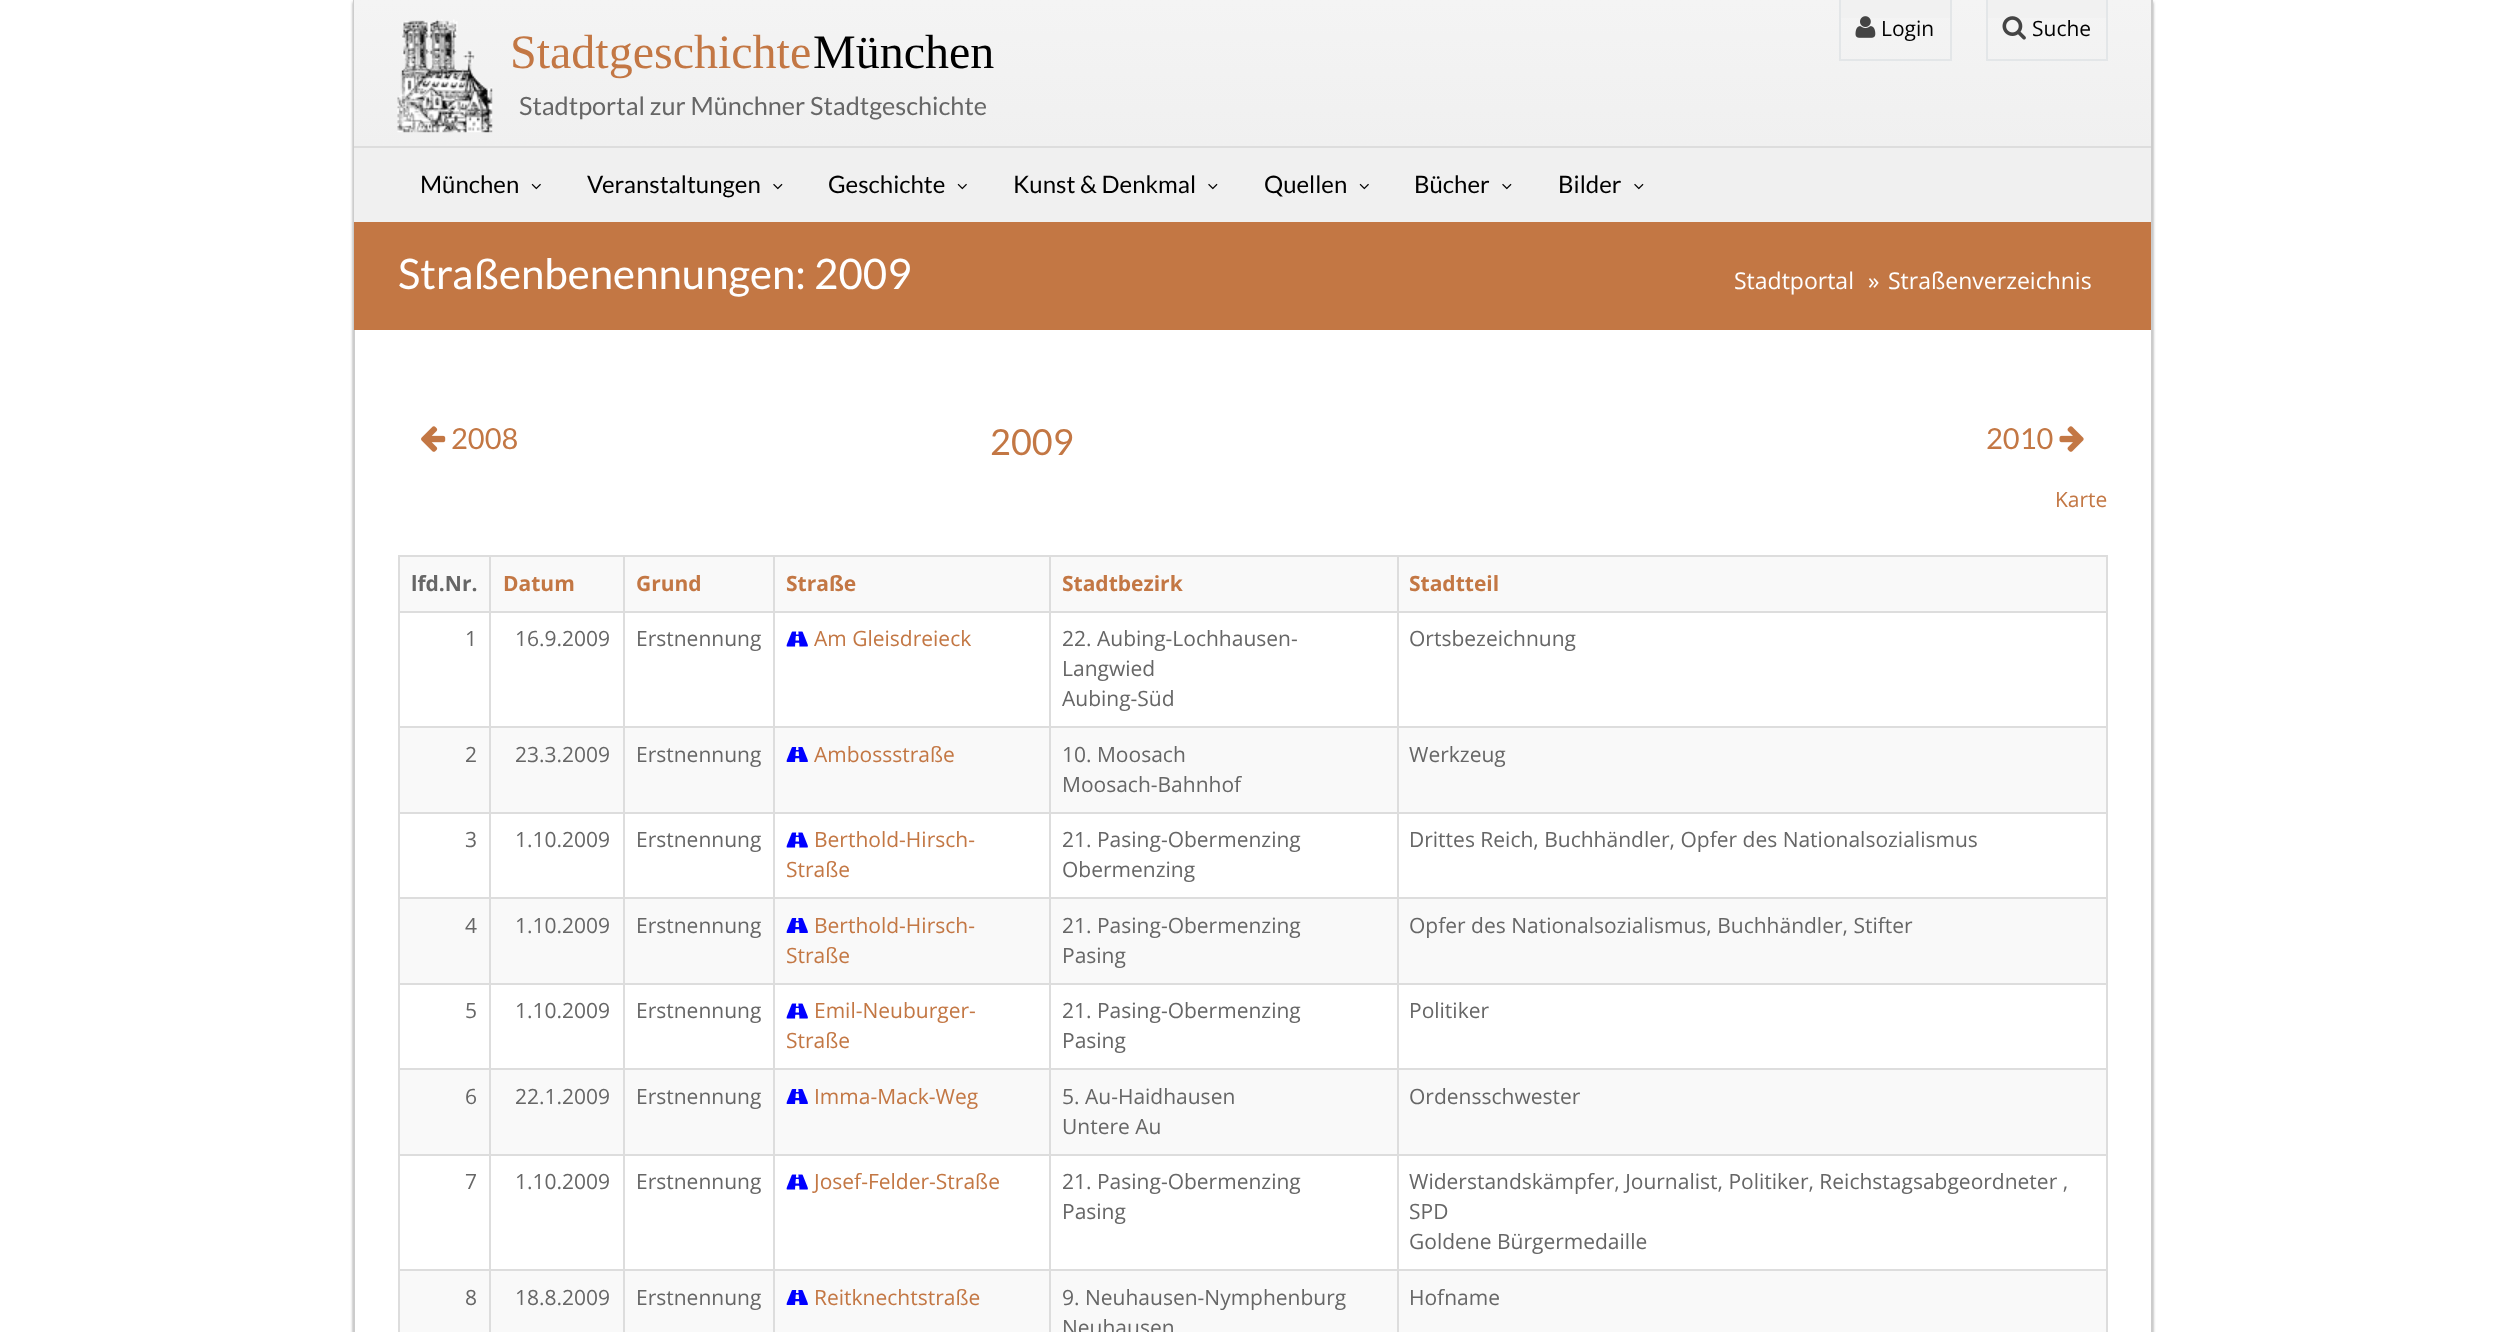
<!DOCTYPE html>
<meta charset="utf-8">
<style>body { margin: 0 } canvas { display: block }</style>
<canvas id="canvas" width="2504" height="1332"></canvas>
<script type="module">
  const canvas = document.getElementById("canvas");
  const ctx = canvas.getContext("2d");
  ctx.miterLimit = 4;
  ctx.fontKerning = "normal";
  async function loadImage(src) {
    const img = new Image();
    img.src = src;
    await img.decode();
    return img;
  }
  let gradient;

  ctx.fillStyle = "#ffffff";
  ctx.fillRect(0, 0, 2504, 1332);
  ctx.fillStyle = "rgba(0, 0, 0, 0.4)";
  ctx.filter = "blur(1.5px)";
  ctx.beginPath();
  ctx.rect(353, 2, 1800, 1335);
  ctx.fill();
  ctx.filter = "none";
  ctx.fillStyle = "#ffffff";
  ctx.fillRect(355, 330, 1796, 1002);
  ctx.fillStyle = "#cccccc";
  ctx.fillRect(2151, 0, 2, 1332);
  ctx.fillRect(353, 0, 2, 1332);
  gradient = ctx.createLinearGradient(1253, 146, 1253, 0);
  gradient.addColorStop(0, "#f0f0f0");
  gradient.addColorStop(1, "#f4f4f4");
  ctx.fillStyle = gradient;
  ctx.fillRect(354, 0, 1797, 146);
  ctx.fillStyle = "#f1f1f1";
  ctx.fillRect(1841, 0, 109, 18);
  ctx.fillStyle = "#e3e6e8";
  ctx.fillRect(1950, 0, 2, 60);
  ctx.fillRect(1839, 59, 113, 2);
  ctx.fillRect(1839, 0, 2, 60);
  ctx.drawImage(await loadImage("img1.png"), 1855, 16, 21, 22);
  ctx.font = "21px Open Sans";
  ctx.fillStyle = "#000000";
  ctx.fillText("Login", 1881, 36);
  ctx.fillStyle = "#f1f1f1";
  ctx.fillRect(1988, 0, 118, 18);
  ctx.fillStyle = "#e3e6e8";
  ctx.fillRect(2106, 0, 2, 60);
  ctx.fillRect(1986, 59, 122, 2);
  ctx.fillRect(1986, 0, 2, 60);
  ctx.drawImage(await loadImage("img2.png"), 2002, 16, 24, 24);
  ctx.fillStyle = "#000000";
  ctx.fillText("Suche", 2032, 36);
  ctx.drawImage(await loadImage("img3.png"), 397, 19, 96, 114);
  ctx.font = "48px Liberation Serif";
  ctx.fillStyle = "#c37744";
  ctx.fillText("Stadtgeschichte", 510, 68);
  ctx.fillStyle = "#000000";
  ctx.fillText("München", 813, 68);
  ctx.font = "25.25px Lato";
  ctx.fillStyle = "#666666";
  ctx.fillText("Stadtportal zur Münchner Stadtgeschichte", 519, 115);
  ctx.fillStyle = "#f0f0f0";
  ctx.fillRect(354, 148, 1797, 74);
  ctx.fillStyle = "#dddddd";
  ctx.fillRect(354, 146, 1797, 2);
  ctx.font = "24px Lato";
  ctx.fillStyle = "#000000";
  ctx.fillText("München", 420, 193);
  ctx.drawImage(await loadImage("img4.png"), 531, 183, 10, 7);
  ctx.fillText("Veranstaltungen", 587, 193);
  ctx.drawImage(await loadImage("img5.png"), 773, 183, 10, 7);
  ctx.fillText("Geschichte", 828, 193);
  ctx.drawImage(await loadImage("img4.png"), 957, 183, 10, 7);
  ctx.fillText("Kunst & Denkmal", 1013, 193);
  ctx.drawImage(await loadImage("img5.png"), 1208, 183, 10, 7);
  ctx.fillText("Quellen", 1264, 193);
  ctx.drawImage(await loadImage("img4.png"), 1359, 183, 10, 7);
  ctx.fillText("Bücher", 1414, 193);
  ctx.drawImage(await loadImage("img5.png"), 1502, 183, 10, 7);
  ctx.fillText("Bilder", 1558, 193);
  ctx.drawImage(await loadImage("img5.png"), 1634, 183, 10, 7);
  ctx.fillStyle = "#c37744";
  ctx.fillRect(354, 222, 1797, 108);
  ctx.font = "42px Lato";
  ctx.fillStyle = "#ffffff";
  ctx.fillText("Straßenbenennungen: 2009", 398, 289);
  ctx.font = "23px Open Sans";
  ctx.fillText("Stadtportal", 1734, 289);
  ctx.fillText("»", 1868, 289);
  ctx.fillText("Straßenverzeichnis", 1888, 289);
  ctx.drawImage(await loadImage("img6.png"), 421, 426, 25, 26);
  ctx.font = "29px Lato";
  ctx.fillStyle = "#c37744";
  ctx.fillText("2008", 451, 449);
  ctx.font = "36px Lato";
  ctx.fillText("2009", 990, 455);
  ctx.font = "29px Lato";
  ctx.fillText("2010", 1986, 449);
  ctx.drawImage(await loadImage("img7.png"), 2059, 426, 25, 26);
  ctx.font = "21px Open Sans";
  ctx.fillText("Karte", 2055, 507);
  ctx.fillStyle = "#dddddd";
  ctx.fillRect(398, 555, 1710, 2);
  ctx.fillRect(2106, 555, 2, 777);
  ctx.fillRect(398, 555, 2, 777);
  ctx.fillStyle = "#f9f9f9";
  ctx.fillRect(400, 557, 1706, 54);
  ctx.font = "bold 21px Open Sans";
  ctx.fillStyle = "#666666";
  ctx.fillText("lfd.Nr.", 411, 591);
  ctx.fillStyle = "#dddddd";
  ctx.fillRect(1397, 611, 711, 2);
  ctx.fillRect(1397, 726, 711, 2);
  ctx.fillStyle = "#f9f9f9";
  ctx.fillRect(400, 728, 1706, 84);
  ctx.fillStyle = "#dddddd";
  ctx.fillRect(1397, 812, 711, 2);
  ctx.fillRect(1397, 897, 711, 2);
  ctx.fillStyle = "#f9f9f9";
  ctx.fillRect(400, 899, 1706, 84);
  ctx.fillStyle = "#dddddd";
  ctx.fillRect(1397, 983, 711, 2);
  ctx.fillRect(1397, 1068, 711, 2);
  ctx.fillStyle = "#f9f9f9";
  ctx.fillRect(400, 1070, 1706, 84);
  ctx.fillStyle = "#dddddd";
  ctx.fillRect(1397, 1154, 711, 2);
  ctx.fillRect(1397, 1269, 711, 2);
  ctx.fillStyle = "#f9f9f9";
  ctx.fillRect(400, 1271, 1706, 61);
  ctx.fillStyle = "#dddddd";
  ctx.fillRect(1397, 1269, 2, 63);
  ctx.fillRect(1049, 1269, 349, 2);
  ctx.fillRect(1397, 1154, 2, 117);
  ctx.fillRect(1049, 1154, 349, 2);
  ctx.fillRect(1397, 1068, 2, 87);
  ctx.fillRect(1049, 1068, 349, 2);
  ctx.fillRect(1397, 983, 2, 87);
  ctx.fillRect(1049, 983, 349, 2);
  ctx.fillRect(1397, 897, 2, 87);
  ctx.fillRect(1049, 897, 349, 2);
  ctx.fillRect(1397, 812, 2, 87);
  ctx.fillRect(1049, 812, 349, 2);
  ctx.fillRect(1397, 726, 2, 87);
  ctx.fillRect(1049, 726, 349, 2);
  ctx.fillRect(1397, 611, 2, 117);
  ctx.fillRect(1049, 611, 349, 2);
  ctx.fillRect(1049, 1269, 2, 63);
  ctx.fillRect(773, 1269, 277, 2);
  ctx.fillRect(1049, 1154, 2, 117);
  ctx.fillRect(773, 1154, 277, 2);
  ctx.fillRect(1049, 1068, 2, 87);
  ctx.fillRect(773, 1068, 277, 2);
  ctx.fillRect(1049, 983, 2, 87);
  ctx.fillRect(773, 983, 277, 2);
  ctx.fillRect(1049, 897, 2, 87);
  ctx.fillRect(773, 897, 277, 2);
  ctx.fillRect(1049, 812, 2, 87);
  ctx.fillRect(773, 812, 277, 2);
  ctx.fillRect(1049, 726, 2, 87);
  ctx.fillRect(773, 726, 277, 2);
  ctx.fillRect(1049, 611, 2, 117);
  ctx.fillRect(773, 611, 277, 2);
  ctx.fillRect(773, 1269, 2, 63);
  ctx.fillRect(623, 1269, 151, 2);
  ctx.fillRect(773, 1154, 2, 117);
  ctx.fillRect(623, 1154, 151, 2);
  ctx.fillRect(773, 1068, 2, 87);
  ctx.fillRect(623, 1068, 151, 2);
  ctx.fillRect(773, 983, 2, 87);
  ctx.fillRect(623, 983, 151, 2);
  ctx.fillRect(773, 897, 2, 87);
  ctx.fillRect(623, 897, 151, 2);
  ctx.fillRect(773, 812, 2, 87);
  ctx.fillRect(623, 812, 151, 2);
  ctx.fillRect(773, 726, 2, 87);
  ctx.fillRect(623, 726, 151, 2);
  ctx.fillRect(773, 611, 2, 117);
  ctx.fillRect(623, 611, 151, 2);
  ctx.fillRect(623, 1269, 2, 63);
  ctx.fillRect(489, 1269, 135, 2);
  ctx.fillRect(623, 1154, 2, 117);
  ctx.fillRect(489, 1154, 135, 2);
  ctx.fillRect(623, 1068, 2, 87);
  ctx.fillRect(489, 1068, 135, 2);
  ctx.fillRect(623, 983, 2, 87);
  ctx.fillRect(489, 983, 135, 2);
  ctx.fillRect(623, 897, 2, 87);
  ctx.fillRect(489, 897, 135, 2);
  ctx.fillRect(623, 812, 2, 87);
  ctx.fillRect(489, 812, 135, 2);
  ctx.fillRect(623, 726, 2, 87);
  ctx.fillRect(489, 726, 135, 2);
  ctx.fillRect(623, 611, 2, 117);
  ctx.fillRect(489, 611, 135, 2);
  ctx.fillRect(489, 1269, 2, 63);
  ctx.fillRect(398, 1269, 93, 2);
  ctx.fillRect(489, 1154, 2, 117);
  ctx.fillRect(398, 1154, 93, 2);
  ctx.fillRect(489, 1068, 2, 87);
  ctx.fillRect(398, 1068, 93, 2);
  ctx.fillRect(489, 983, 2, 87);
  ctx.fillRect(398, 983, 93, 2);
  ctx.fillRect(489, 897, 2, 87);
  ctx.fillRect(398, 897, 93, 2);
  ctx.fillRect(489, 812, 2, 87);
  ctx.fillRect(398, 812, 93, 2);
  ctx.fillRect(489, 726, 2, 87);
  ctx.fillRect(398, 726, 93, 2);
  ctx.fillRect(489, 611, 2, 117);
  ctx.fillRect(398, 611, 93, 2);
  ctx.fillRect(489, 555, 2, 57);
  ctx.fillStyle = "#c37744";
  ctx.fillText("Datum", 503, 591);
  ctx.fillStyle = "#dddddd";
  ctx.fillRect(623, 555, 2, 57);
  ctx.fillStyle = "#c37744";
  ctx.fillText("Grund", 636, 591);
  ctx.fillStyle = "#dddddd";
  ctx.fillRect(773, 555, 2, 57);
  ctx.fillStyle = "#c37744";
  ctx.fillText("Straße", 786, 591);
  ctx.fillStyle = "#dddddd";
  ctx.fillRect(1049, 555, 2, 57);
  ctx.fillStyle = "#c37744";
  ctx.fillText("Stadtbezirk", 1062, 591);
  ctx.fillStyle = "#dddddd";
  ctx.fillRect(1397, 555, 2, 57);
  ctx.fillStyle = "#c37744";
  ctx.fillText("Stadtteil", 1409, 591);
  ctx.font = "21px Open Sans";
  ctx.fillStyle = "#666666";
  ctx.fillText("1", 465, 646);
  ctx.fillText("16.9.2009", 515, 646);
  ctx.fillText("Erstnennung", 636, 646);
  ctx.drawImage(await loadImage("img8.png"), 786, 631, 22, 16);
  ctx.fillStyle = "#c37744";
  ctx.fillText("Am Gleisdreieck", 814, 646);
  ctx.fillStyle = "#666666";
  ctx.fillText("22. Aubing-Lochhausen-", 1062, 646);
  ctx.fillText("Langwied", 1062, 676);
  ctx.fillText("Aubing-Süd", 1062, 706);
  ctx.fillText("Ortsbezeichnung", 1409, 646);
  ctx.fillText("2", 465, 762);
  ctx.fillText("23.3.2009", 515, 762);
  ctx.fillText("Erstnennung", 636, 762);
  ctx.drawImage(await loadImage("img9.png"), 786, 747, 22, 15);
  ctx.fillStyle = "#c37744";
  ctx.fillText("Ambossstraße", 814, 762);
  ctx.fillStyle = "#666666";
  ctx.fillText("10. Moosach", 1062, 762);
  ctx.fillText("Moosach-Bahnhof", 1062, 792);
  ctx.fillText("Werkzeug", 1409, 762);
  ctx.fillText("3", 465, 847);
  ctx.fillText("1.10.2009", 515, 847);
  ctx.fillText("Erstnennung", 636, 847);
  ctx.drawImage(await loadImage("img8.png"), 786, 832, 22, 16);
  ctx.fillStyle = "#c37744";
  ctx.fillText("Berthold-Hirsch-", 814, 847);
  ctx.fillText("Straße", 786, 877);
  ctx.fillStyle = "#666666";
  ctx.fillText("21. Pasing-Obermenzing", 1062, 847);
  ctx.fillText("Obermenzing", 1062, 877);
  ctx.fillText("Drittes Reich, Buchhändler, Opfer des Nationalsozialismus", 1409, 847);
  ctx.fillText("4", 465, 933);
  ctx.fillText("1.10.2009", 515, 933);
  ctx.fillText("Erstnennung", 636, 933);
  ctx.drawImage(await loadImage("img9.png"), 786, 918, 22, 15);
  ctx.fillStyle = "#c37744";
  ctx.fillText("Berthold-Hirsch-", 814, 933);
  ctx.fillText("Straße", 786, 963);
  ctx.fillStyle = "#666666";
  ctx.fillText("21. Pasing-Obermenzing", 1062, 933);
  ctx.fillText("Pasing", 1062, 963);
  ctx.fillText("Opfer des Nationalsozialismus, Buchhändler, Stifter", 1409, 933);
  ctx.fillText("5", 465, 1018);
  ctx.fillText("1.10.2009", 515, 1018);
  ctx.fillText("Erstnennung", 636, 1018);
  ctx.drawImage(await loadImage("img8.png"), 786, 1003, 22, 16);
  ctx.fillStyle = "#c37744";
  ctx.fillText("Emil-Neuburger-", 814, 1018);
  ctx.fillText("Straße", 786, 1048);
  ctx.fillStyle = "#666666";
  ctx.fillText("21. Pasing-Obermenzing", 1062, 1018);
  ctx.fillText("Pasing", 1062, 1048);
  ctx.fillText("Politiker", 1409, 1018);
  ctx.fillText("6", 465, 1104);
  ctx.fillText("22.1.2009", 515, 1104);
  ctx.fillText("Erstnennung", 636, 1104);
  ctx.drawImage(await loadImage("img9.png"), 786, 1089, 22, 15);
  ctx.fillStyle = "#c37744";
  ctx.fillText("Imma-Mack-Weg", 814, 1104);
  ctx.fillStyle = "#666666";
  ctx.fillText("5. Au-Haidhausen", 1062, 1104);
  ctx.fillText("Untere Au", 1062, 1134);
  ctx.fillText("Ordensschwester", 1409, 1104);
  ctx.fillText("7", 465, 1189);
  ctx.fillText("1.10.2009", 515, 1189);
  ctx.fillText("Erstnennung", 636, 1189);
  ctx.drawImage(await loadImage("img8.png"), 786, 1174, 22, 16);
  ctx.fillStyle = "#c37744";
  ctx.fillText("Josef-Felder-Straße", 814, 1189);
  ctx.fillStyle = "#666666";
  ctx.fillText("21. Pasing-Obermenzing", 1062, 1189);
  ctx.fillText("Pasing", 1062, 1219);
  ctx.fillText("Widerstandskämpfer, Journalist, Politiker, Reichstagsabgeordneter ,", 1409, 1189);
  ctx.fillText("SPD", 1409, 1219);
  ctx.fillText("Goldene Bürgermedaille", 1409, 1249);
  ctx.fillText("8", 465, 1305);
  ctx.fillText("18.8.2009", 515, 1305);
  ctx.fillText("Erstnennung", 636, 1305);
  ctx.drawImage(await loadImage("img9.png"), 786, 1290, 22, 15);
  ctx.fillStyle = "#c37744";
  ctx.fillText("Reitknechtstraße", 814, 1305);
  ctx.fillStyle = "#666666";
  ctx.fillText("9. Neuhausen-Nymphenburg", 1062, 1305);
  ctx.fillText("Neuhausen", 1062, 1335);
  ctx.fillText("Hofname", 1409, 1305);
</script>
